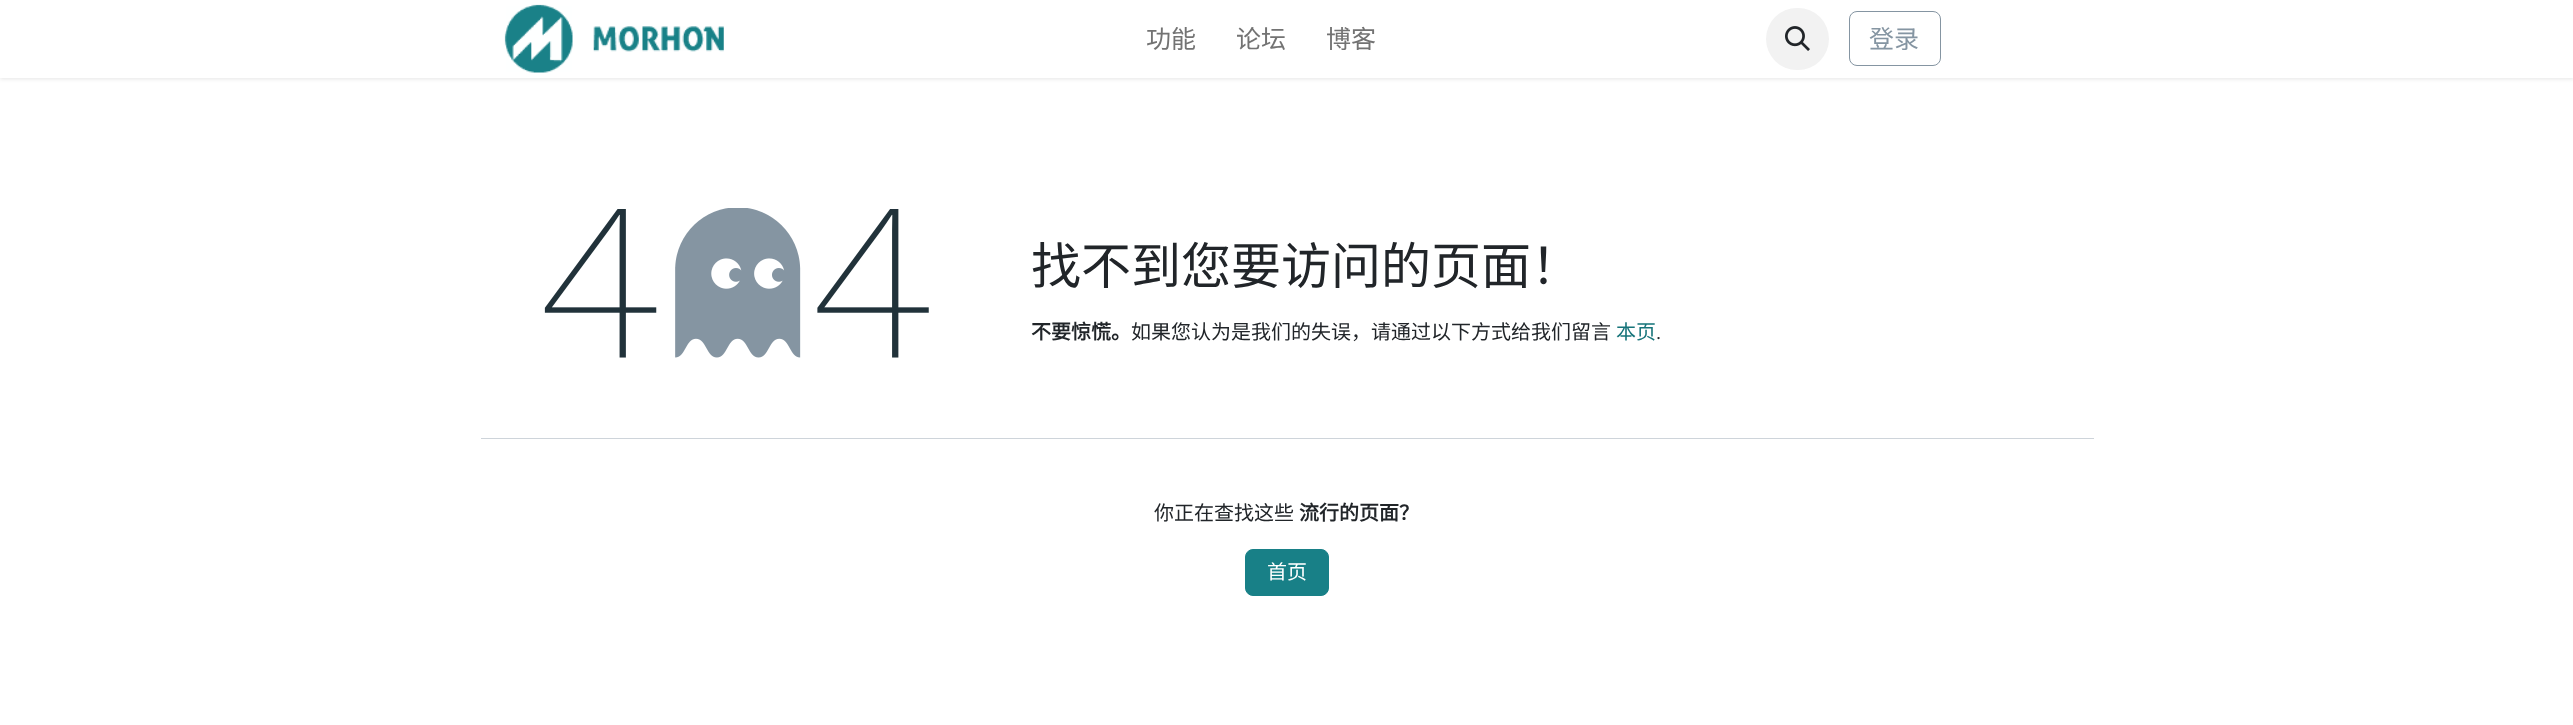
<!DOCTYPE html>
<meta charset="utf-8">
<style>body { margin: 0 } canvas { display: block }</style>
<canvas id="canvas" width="2573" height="725"></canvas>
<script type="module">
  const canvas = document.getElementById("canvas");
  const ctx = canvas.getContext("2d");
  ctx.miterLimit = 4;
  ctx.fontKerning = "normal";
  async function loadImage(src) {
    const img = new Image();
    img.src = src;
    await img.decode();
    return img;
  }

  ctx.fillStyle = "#ffffff";
  ctx.fillRect(0, 0, 2573, 725);
  ctx.fillStyle = "rgba(0, 0, 0, 0.1)";
  ctx.filter = "blur(2px)";
  ctx.beginPath();
  ctx.rect(0, 1, 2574, 78);
  ctx.fill();
  ctx.filter = "none";
  ctx.fillStyle = "#ffffff";
  ctx.fillRect(0, 0, 2573, 78);
  ctx.drawImage(await loadImage("img1.png"), 504, 4, 220, 69);
  ctx.font = "25px Noto Sans CJK SC";
  ctx.fillStyle = "#737373";
  ctx.fillText("功能", 1146, 48);
  ctx.fillText("论坛", 1236, 48);
  ctx.fillText("博客", 1326, 48);
  ctx.fillStyle = "#f2f2f2";
  ctx.beginPath();
  ctx.roundRect(1766, 8, 63, 62, 31);
  ctx.fill();
  ctx.drawImage(await loadImage("img2.png"), 1785, 26, 25, 25);
  ctx.beginPath();
  ctx.roundRect(1849.5, 11.5, 91, 54, 7.5);
  ctx.strokeStyle = "#8595a2";
  ctx.stroke();
  ctx.fillStyle = "#8595a2";
  ctx.fillText("登录", 1869, 48);
  ctx.drawImage(await loadImage("img3.png"), 544, 208, 385, 150);
  ctx.font = "50px Noto Sans CJK SC";
  ctx.fillStyle = "#212529";
  ctx.fillText("找不到您要访问的页面！", 1031, 284);
  ctx.font = "bold 20px Noto Sans CJK SC";
  ctx.fillText("不要惊慌。", 1031, 339);
  ctx.font = "20px Noto Sans CJK SC";
  ctx.fillText("如果您认为是我们的失误，请通过以下方式给我们留言", 1131, 339);
  ctx.fillStyle = "#16747a";
  ctx.fillText("本页", 1616, 339);
  ctx.font = "20px Roboto";
  ctx.fillStyle = "#212529";
  ctx.fillText(".", 1656, 339);
  ctx.fillStyle = "#ced4da";
  ctx.fillRect(481, 438, 1613, 1);
  ctx.font = "20px Noto Sans CJK SC";
  ctx.fillStyle = "#212529";
  ctx.fillText("你正在查找这些", 1154, 520);
  ctx.font = "bold 20px Noto Sans CJK SC";
  ctx.fillText("流行的页面？", 1299, 520);
  ctx.fillStyle = "#188087";
  ctx.beginPath();
  ctx.roundRect(1245.5, 549.5, 83, 46, 7.5);
  ctx.fill();
  ctx.strokeStyle = "#188087";
  ctx.stroke();
  ctx.font = "20px Noto Sans CJK SC";
  ctx.fillStyle = "#ffffff";
  ctx.fillText("首页", 1267, 579);
</script>
